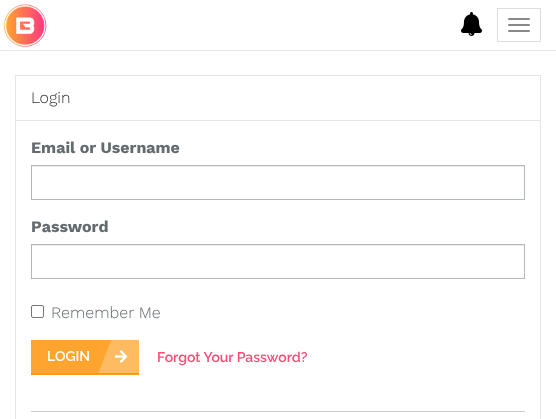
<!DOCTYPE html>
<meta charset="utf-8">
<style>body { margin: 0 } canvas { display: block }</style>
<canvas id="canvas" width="556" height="419"></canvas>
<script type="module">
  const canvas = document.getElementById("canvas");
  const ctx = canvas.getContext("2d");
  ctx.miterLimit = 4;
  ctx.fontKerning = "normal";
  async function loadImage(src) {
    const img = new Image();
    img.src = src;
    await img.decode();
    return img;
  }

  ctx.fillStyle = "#ffffff";
  ctx.fillRect(0, 0, 556, 419);
  ctx.fillStyle = "#e6e5e5";
  ctx.fillRect(0, 50, 556, 1);
  ctx.drawImage(await loadImage("img1.png"), 3, 4, 44, 44);
  ctx.drawImage(await loadImage("img2.png"), 461, 12, 21, 24);
  ctx.strokeStyle = "#dddddd";
  ctx.strokeRect(497.5, 8.5, 43, 33);
  ctx.fillStyle = "#888888";
  ctx.beginPath();
  ctx.roundRect(508, 18, 22, 2, 1);
  ctx.fill();
  ctx.beginPath();
  ctx.roundRect(508, 24, 22, 2, 1);
  ctx.fill();
  ctx.beginPath();
  ctx.roundRect(508, 30, 22, 2, 1);
  ctx.fill();
  ctx.strokeStyle = "#e6e5e5";
  ctx.strokeRect(15.5, 75.5, 525, 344);
  ctx.fillStyle = "#e6e5e5";
  ctx.fillRect(16, 120, 524, 1);
  ctx.font = "300 16px Work Sans";
  ctx.fillStyle = "#333333";
  ctx.fillText("Login", 31, 103);
  ctx.font = "bold 16px Work Sans";
  ctx.fillStyle = "#636b6f";
  ctx.fillText("Email or Username", 31, 153);
  ctx.fillStyle = "#ececec";
  ctx.fillRect(32, 166, 492, 1);
  ctx.strokeStyle = "#b1b7ba";
  ctx.strokeRect(31.5, 165.5, 493, 34);
  ctx.fillStyle = "#636b6f";
  ctx.fillText("Password", 31, 232);
  ctx.fillStyle = "#ececec";
  ctx.fillRect(32, 245, 492, 1);
  ctx.strokeRect(31.5, 244.5, 493, 34);
  ctx.beginPath();
  ctx.roundRect(31.5, 305.5, 12, 12, 1.5);
  ctx.strokeStyle = "#767676";
  ctx.stroke();
  ctx.font = "300 16px Work Sans";
  ctx.fillStyle = "#636b6f";
  ctx.fillText("Remember Me", 51, 318);
  ctx.fillStyle = "#ffa42e";
  ctx.fillRect(31, 340, 108, 33);
  ctx.drawImage(await loadImage("img3.png"), 98, 340, 41, 33);
  ctx.fillStyle = "#ff9915";
  ctx.fillRect(31, 373, 108, 2);
  ctx.font = "600 14px Raleway";
  ctx.fillStyle = "#ffffff";
  ctx.fillText("LOGIN", 47, 361);
  ctx.fillStyle = "#ff4a74";
  ctx.fillText("Forgot Your Password?", 157, 362);
  ctx.fillStyle = "#cccccc";
  ctx.fillRect(31, 411, 494, 1);
</script>
